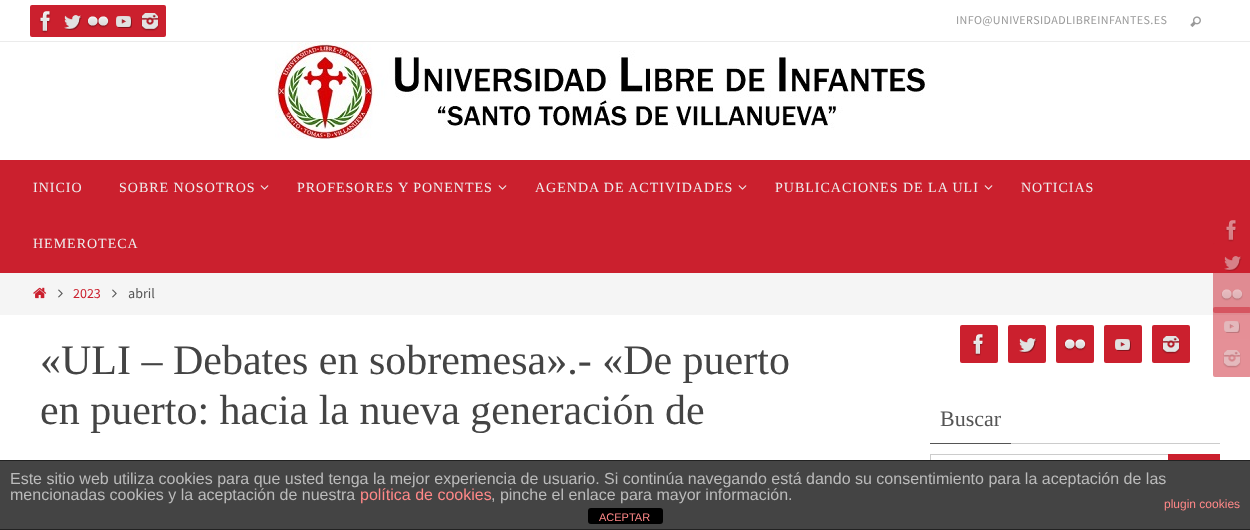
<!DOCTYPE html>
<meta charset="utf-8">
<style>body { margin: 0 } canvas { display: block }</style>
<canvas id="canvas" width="1250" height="530"></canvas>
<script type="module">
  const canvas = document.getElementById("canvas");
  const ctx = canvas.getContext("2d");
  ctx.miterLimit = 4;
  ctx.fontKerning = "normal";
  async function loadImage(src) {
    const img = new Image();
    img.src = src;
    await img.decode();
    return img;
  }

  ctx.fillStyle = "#ffffff";
  ctx.fillRect(0, 0, 1250, 530);
  ctx.fillStyle = "#ebebeb";
  ctx.fillRect(0, 41, 1250, 1);
  ctx.fillStyle = "#cb202e";
  ctx.beginPath();
  ctx.roundRect(30, 5, 32, 32, 2);
  ctx.fill();
  ctx.drawImage(await loadImage("img1.png"), 39, 11, 12, 22);
  ctx.beginPath();
  ctx.roundRect(56, 5, 32, 32, 2);
  ctx.fill();
  ctx.drawImage(await loadImage("img2.png"), 64, 15, 18, 15);
  ctx.beginPath();
  ctx.roundRect(82, 5, 32, 32, 2);
  ctx.fill();
  ctx.beginPath();
  ctx.roundRect(108, 5, 32, 32, 2);
  ctx.fill();
  ctx.drawImage(await loadImage("img3.png"), 87, 16, 22, 12);
  ctx.drawImage(await loadImage("img4.png"), 116, 16, 16, 12);
  ctx.beginPath();
  ctx.roundRect(134, 5, 32, 32, 2);
  ctx.fill();
  ctx.drawImage(await loadImage("img5.png"), 141, 13, 18, 18);
  ctx.letterSpacing = "0.4px";
  ctx.font = "12px Source Sans Pro";
  ctx.fillStyle = "#999999";
  ctx.fillText("INFO@UNIVERSIDADLIBREINFANTES.ES", 956, 24);
  ctx.drawImage(await loadImage("img6.png"), 1190, 16, 11, 11);
  ctx.drawImage(await loadImage("img7.png"), 275, 42, 654, 98);
  ctx.fillStyle = "#cb202e";
  ctx.fillRect(0, 160, 1250, 113);
  ctx.letterSpacing = "1px";
  ctx.font = "14px Liberation Serif";
  ctx.fillStyle = "#eeeeee";
  ctx.fillText("INICIO", 33, 192);
  ctx.fillText("SOBRE NOSOTROS", 119, 192);
  ctx.drawImage(await loadImage("img8.png"), 260, 185, 9, 5);
  ctx.fillText("PROFESORES Y PONENTES", 297, 192);
  ctx.drawImage(await loadImage("img8.png"), 498, 185, 9, 5);
  ctx.fillText("AGENDA DE ACTIVIDADES", 535, 192);
  ctx.drawImage(await loadImage("img8.png"), 738, 185, 9, 5);
  ctx.fillText("PUBLICACIONES DE LA ULI", 775, 192);
  ctx.drawImage(await loadImage("img8.png"), 984, 185, 9, 5);
  ctx.fillText("NOTICIAS", 1021, 192);
  ctx.fillText("HEMEROTECA", 33, 248);
  ctx.drawImage(await loadImage("img9.png"), 1225, 220, 12, 22);
  ctx.fillStyle = "#f5f5f5";
  ctx.fillRect(0, 273, 1250, 42);
  ctx.fillStyle = "rgba(203, 32, 46, 0.5)";
  ctx.beginPath();
  ctx.roundRect(1213, 243, 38, 38, 2);
  ctx.fill();
  ctx.drawImage(await loadImage("img10.png"), 1224, 256, 18, 15);
  ctx.fillStyle = "#e08b92";
  ctx.beginPath();
  ctx.roundRect(1213, 275, 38, 38, 2);
  ctx.fill();
  ctx.drawImage(await loadImage("img11.png"), 1221, 289, 22, 12);
  ctx.fillStyle = "rgba(203, 32, 46, 0.5)";
  ctx.beginPath();
  ctx.roundRect(1213, 307, 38, 38, 2);
  ctx.fill();
  ctx.drawImage(await loadImage("img12.png"), 1224, 321, 16, 12);
  ctx.fillStyle = "#e59097";
  ctx.beginPath();
  ctx.roundRect(1213, 339, 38, 38, 2);
  ctx.fill();
  ctx.drawImage(await loadImage("img13.png"), 1223, 350, 18, 18);
  ctx.drawImage(await loadImage("img14.png"), 33, 287, 14, 12);
  ctx.drawImage(await loadImage("img15.png"), 58, 289, 5, 9);
  ctx.letterSpacing = "0px";
  ctx.font = "14px Source Sans Pro";
  ctx.fillStyle = "#cb202e";
  ctx.fillText("2023", 73, 298);
  ctx.drawImage(await loadImage("img15.png"), 112, 289, 5, 9);
  ctx.fillStyle = "#555555";
  ctx.fillText("abril", 128, 298);
  ctx.font = "42px Liberation Serif";
  ctx.fillStyle = "#444444";
  ctx.fillText("«ULI – Debates en sobremesa».- «De puerto", 40, 374);
  ctx.fillText("en puerto: hacia la nueva generación de", 40, 424);
  ctx.fillStyle = "#cb202e";
  ctx.beginPath();
  ctx.roundRect(960, 325, 38, 38, 2);
  ctx.fill();
  ctx.drawImage(await loadImage("img1.png"), 972, 334, 12, 22);
  ctx.beginPath();
  ctx.roundRect(1008, 325, 38, 38, 2);
  ctx.fill();
  ctx.drawImage(await loadImage("img2.png"), 1019, 338, 18, 15);
  ctx.beginPath();
  ctx.roundRect(1056, 325, 38, 38, 2);
  ctx.fill();
  ctx.drawImage(await loadImage("img3.png"), 1064, 339, 22, 12);
  ctx.beginPath();
  ctx.roundRect(1104, 325, 38, 38, 2);
  ctx.fill();
  ctx.drawImage(await loadImage("img4.png"), 1115, 339, 16, 12);
  ctx.beginPath();
  ctx.roundRect(1152, 325, 38, 38, 2);
  ctx.fill();
  ctx.drawImage(await loadImage("img5.png"), 1162, 336, 18, 18);
  ctx.fillStyle = "#cccccc";
  ctx.fillRect(1011, 443, 209, 1);
  ctx.fillStyle = "#555555";
  ctx.fillRect(930, 443, 81, 1);
  ctx.font = "22px Liberation Serif";
  ctx.fillText("Buscar", 940, 426);
  ctx.fillStyle = "#cccccc";
  ctx.fillRect(930, 454, 238, 1);
  ctx.fillRect(930, 454, 1, 6);
  ctx.fillStyle = "#cb202e";
  ctx.fillRect(1168, 454, 52, 6);
  ctx.fillStyle = "#444444";
  ctx.fillRect(0, 461, 1250, 68);
  ctx.fillStyle = "#222222";
  ctx.fillRect(0, 460, 1250, 1);
  ctx.fillRect(0, 529, 1250, 1);
  ctx.font = "16px Liberation Sans";
  ctx.fillStyle = "#bbbbbb";
  ctx.fillText("Este sitio web utiliza cookies para que usted tenga la mejor experiencia de usuario. Si continúa navegando está dando su consentimiento para la aceptación de las", 10, 484);
  ctx.fillText("mencionadas cookies y la aceptación de nuestra", 10, 500);
  ctx.fillStyle = "#ff8888";
  ctx.fillText("política de cookies", 360, 500);
  ctx.fillStyle = "#bbbbbb";
  ctx.fillText(", pinche el enlace para mayor información.", 491, 500);
  ctx.font = "12px Liberation Sans";
  ctx.fillStyle = "#ff8888";
  ctx.fillText("plugin cookies", 1164, 508);
  ctx.fillStyle = "#000000";
  ctx.beginPath();
  ctx.roundRect(588, 508, 75, 16, 3);
  ctx.fill();
  ctx.font = "11px Liberation Sans";
  ctx.fillStyle = "#ff8888";
  ctx.fillText("ACEPTAR", 599, 521);
</script>
